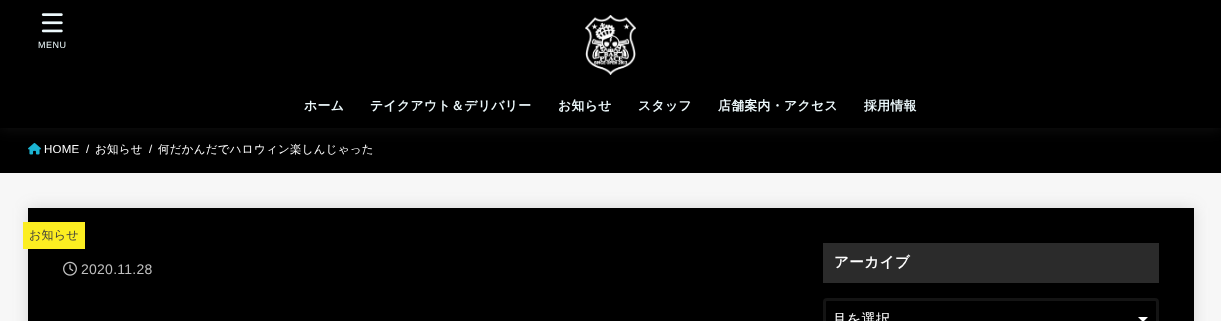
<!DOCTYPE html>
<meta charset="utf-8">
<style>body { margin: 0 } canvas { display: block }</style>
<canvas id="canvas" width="1221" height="321"></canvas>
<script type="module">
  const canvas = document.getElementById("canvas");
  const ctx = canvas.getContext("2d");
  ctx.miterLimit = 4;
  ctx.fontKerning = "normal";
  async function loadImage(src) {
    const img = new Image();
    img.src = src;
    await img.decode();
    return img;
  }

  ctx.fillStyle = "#f7f7f7";
  ctx.fillRect(0, 0, 1221, 321);
  ctx.fillStyle = "#000000";
  ctx.fillRect(0, 128, 1221, 45);
  ctx.drawImage(await loadImage("img3.png"), 28, 142, 13, 13);
  ctx.fillStyle = "rgba(102, 102, 102, 0.2)";
  ctx.filter = "blur(7.5px)";
  ctx.beginPath();
  ctx.rect(0, 0, 1221, 128);
  ctx.fill();
  ctx.filter = "none";
  ctx.fillStyle = "#000000";
  ctx.fillRect(0, 0, 1221, 128);
  ctx.drawImage(await loadImage("img1.png"), 41, 13, 22, 20);
  ctx.letterSpacing = "0.5px";
  ctx.font = "9px Liberation Sans";
  ctx.fillStyle = "#edf9fc";
  ctx.fillText("MENU", 38, 48);
  ctx.drawImage(await loadImage("img2.png"), 585, 15, 51, 60);
  ctx.letterSpacing = "0.4px";
  ctx.font = "bold 12.8px WenQuanYi Zen Hei";
  ctx.fillText("ホーム", 304, 110);
  ctx.fillText("テイクアウト＆デリバリー", 370, 110);
  ctx.fillText("お知らせ", 558, 110);
  ctx.fillText("スタッフ", 638, 110);
  ctx.fillText("店舗案内・アクセス", 718, 110);
  ctx.fillText("採用情報", 864, 110);
  ctx.letterSpacing = "0.25px";
  ctx.font = "11.5px Liberation Sans";
  ctx.fillStyle = "#ffffff";
  ctx.fillText("HOME", 44, 153);
  ctx.fillText("/", 86, 153);
  ctx.font = "500 11.5px WenQuanYi Zen Hei";
  ctx.fillText("お知らせ", 95, 153);
  ctx.font = "11.5px Liberation Sans";
  ctx.fillText("/", 149, 153);
  ctx.font = "500 11.5px WenQuanYi Zen Hei";
  ctx.fillText("何だかんだでハロウィン楽しんじゃった", 158, 153);
  ctx.fillStyle = "rgba(102, 102, 102, 0.2)";
  ctx.filter = "blur(7.5px)";
  ctx.beginPath();
  ctx.rect(28, 208, 1166, 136);
  ctx.fill();
  ctx.filter = "none";
  ctx.fillStyle = "#000000";
  ctx.fillRect(28, 208, 1166, 113);
  ctx.fillStyle = "#fcee21";
  ctx.fillRect(23, 222, 62, 27);
  ctx.font = "500 12px WenQuanYi Zen Hei";
  ctx.fillStyle = "#3e3e3e";
  ctx.fillText("お知らせ", 29, 239);
  ctx.drawImage(await loadImage("img4.png"), 63, 261, 14, 15);
  ctx.font = "14px Liberation Sans";
  ctx.fillStyle = "#bfbfbf";
  ctx.fillText("2020.11.28", 81, 274);
  ctx.fillStyle = "#2b2b2b";
  ctx.fillRect(823, 243, 336, 40);
  ctx.letterSpacing = "0.5px";
  ctx.font = "bold 14.5px WenQuanYi Zen Hei";
  ctx.fillStyle = "#ffffff";
  ctx.fillText("アーカイブ", 834, 267);
  ctx.beginPath();
  ctx.moveTo(1138, 317);
  ctx.lineTo(1148, 317);
  ctx.lineTo(1143, 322);
  ctx.closePath();
  ctx.fill();
  ctx.beginPath();
  ctx.roundRect(824.5, 299.5, 333, 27, 2.5);
  ctx.strokeStyle = "#141414";
  ctx.lineWidth = 3;
  ctx.stroke();
  ctx.letterSpacing = "0px";
  ctx.font = "500 14.5px WenQuanYi Zen Hei";
  ctx.fillText("月を選択", 832, 324);
</script>
